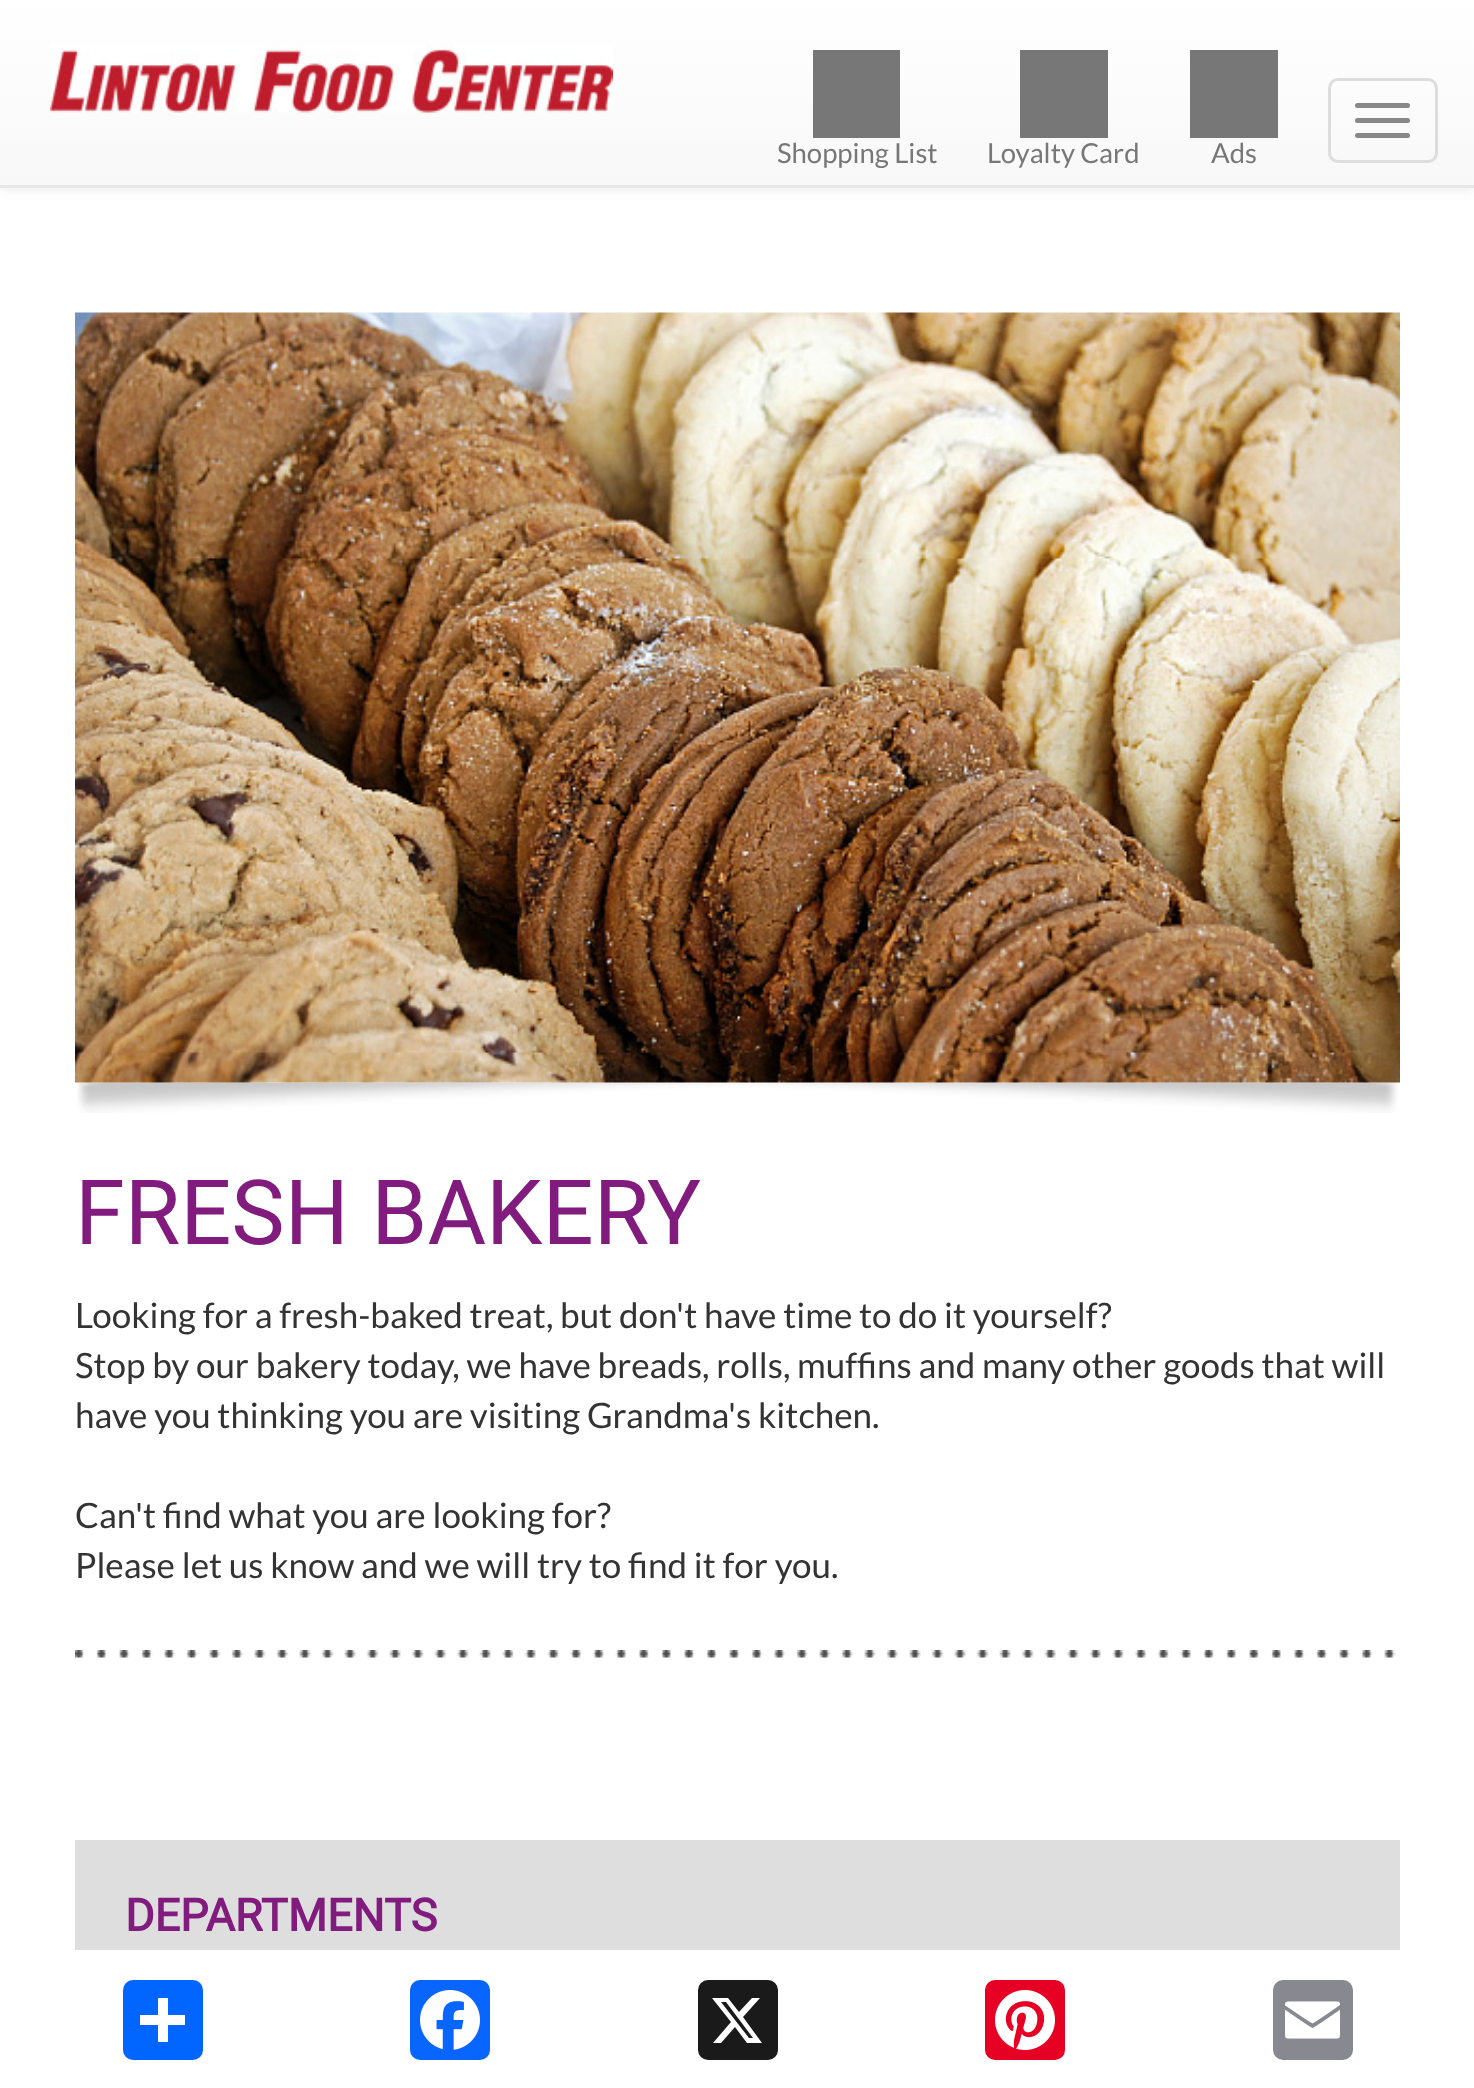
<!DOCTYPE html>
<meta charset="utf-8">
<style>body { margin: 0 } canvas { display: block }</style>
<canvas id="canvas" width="1474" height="2088"></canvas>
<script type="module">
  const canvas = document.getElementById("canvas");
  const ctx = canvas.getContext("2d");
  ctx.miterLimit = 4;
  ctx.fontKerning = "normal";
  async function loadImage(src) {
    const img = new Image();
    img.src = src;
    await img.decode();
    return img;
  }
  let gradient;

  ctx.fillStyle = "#ffffff";
  ctx.fillRect(0, 0, 1474, 2088);
  ctx.fillStyle = "rgba(0, 0, 0, 0.07)";
  ctx.filter = "blur(6px)";
  ctx.beginPath();
  ctx.rect(0, 3, 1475, 187);
  ctx.fill();
  ctx.filter = "none";
  gradient = ctx.createLinearGradient(738, 0, 738, 185);
  gradient.addColorStop(0, "#ffffff");
  gradient.addColorStop(1, "#f8f8f8");
  ctx.fillStyle = gradient;
  ctx.fillRect(0, 0, 1474, 185);
  ctx.fillStyle = "#e7e7e7";
  ctx.fillRect(0, 185, 1474, 3);
  ctx.drawImage(await loadImage("img1.png"), 50, 45, 563, 68);
  ctx.fillStyle = "#777777";
  ctx.fillRect(813, 50, 87, 88);
  ctx.font = "27.5px Lato";
  ctx.fillText("Shopping List", 777, 163);
  ctx.fillRect(1020, 50, 88, 88);
  ctx.fillText("Loyalty Card", 987, 163);
  ctx.fillRect(1190, 50, 88, 88);
  ctx.fillText("Ads", 1211, 163);
  ctx.beginPath();
  ctx.roundRect(1329.5, 79.5, 107, 82, 8.5);
  ctx.strokeStyle = "#dddddd";
  ctx.lineWidth = 3;
  ctx.stroke();
  ctx.fillStyle = "#888888";
  ctx.beginPath();
  ctx.roundRect(1355, 103, 55, 5, 2.5);
  ctx.fill();
  ctx.beginPath();
  ctx.roundRect(1355, 118, 55, 5, 2.5);
  ctx.fill();
  ctx.beginPath();
  ctx.roundRect(1355, 133, 55, 5, 2.5);
  ctx.fill();
  ctx.drawImage(await loadImage("img3.png"), 77, 1082, 1321, 31);
  ctx.drawImage(await loadImage("img2.png"), 75, 312, 1325, 771);
  ctx.font = "90px Roboto";
  ctx.fillStyle = "#811b7e";
  ctx.fillText("FRESH BAKERY", 75, 1244);
  ctx.font = "35px Lato";
  ctx.fillStyle = "#333333";
  ctx.fillText("Looking for a fresh-baked treat, but don't have time to do it yourself?", 75, 1328);
  ctx.fillText("Stop by our bakery today, we have breads, rolls, muffins and many other goods that will", 75, 1378);
  ctx.fillText("have you thinking you are visiting Grandma's kitchen.", 75, 1428);
  ctx.fillText("Can't find what you are looking for?", 75, 1528);
  ctx.fillText("Please let us know and we will try to find it for you.", 75, 1578);
  ctx.drawImage(await loadImage("img4.png"), 75, 1650, 1321, 8);
  ctx.fillStyle = "#dedede";
  ctx.fillRect(75, 1840, 1325, 110);
  ctx.font = "bold 45px Roboto";
  ctx.fillStyle = "#811b7e";
  ctx.fillText("DEPARTMENTS", 125, 1931);
  ctx.fillStyle = "#0166ff";
  ctx.beginPath();
  ctx.roundRect(123, 1980, 80, 80, 10);
  ctx.fill();
  ctx.fillStyle = "#ffffff";
  ctx.fillRect(158, 1998, 10, 44);
  ctx.fillRect(140, 2015, 45, 10);
  ctx.fillStyle = "#0866ff";
  ctx.beginPath();
  ctx.roundRect(410, 1980, 80, 80, 10);
  ctx.fill();
  ctx.drawImage(await loadImage("img5.png"), 420, 1990, 60, 60);
  ctx.fillStyle = "#1a1a1a";
  ctx.beginPath();
  ctx.roundRect(698, 1980, 80, 80, 10);
  ctx.fill();
  ctx.fillStyle = "#ffffff";
  ctx.beginPath();
  ctx.moveTo(752, 1998);
  ctx.lineTo(760, 1998);
  ctx.lineTo(743, 2017);
  ctx.lineTo(762, 2043);
  ctx.lineTo(747, 2043);
  ctx.lineTo(735, 2027);
  ctx.lineTo(721, 2043);
  ctx.lineTo(713, 2043);
  ctx.lineTo(731, 2022);
  ctx.lineTo(712, 1998);
  ctx.lineTo(728, 1998);
  ctx.lineTo(739, 2012);
  ctx.closePath();
  ctx.moveTo(749, 2038);
  ctx.lineTo(753, 2038);
  ctx.lineTo(726, 2002);
  ctx.lineTo(721, 2002);
  ctx.closePath();
  ctx.fill();
  ctx.fillStyle = "#e60023";
  ctx.beginPath();
  ctx.roundRect(985, 1980, 80, 80, 10);
  ctx.fill();
  ctx.drawImage(await loadImage("img6.png"), 995, 1990, 60, 60);
  ctx.fillStyle = "#888990";
  ctx.beginPath();
  ctx.roundRect(1273, 1980, 80, 80, 10);
  ctx.fill();
  ctx.drawImage(await loadImage("img7.png"), 1285, 2001, 55, 38);
</script>
